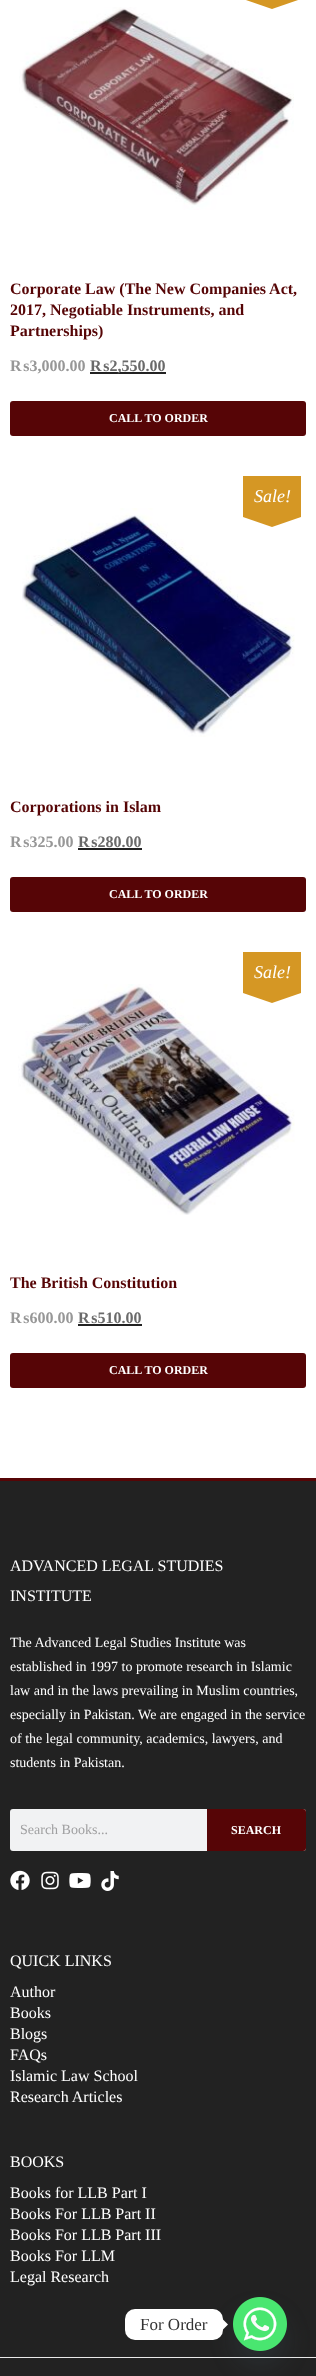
<!DOCTYPE html>
<meta charset="utf-8">
<style>body { margin: 0 } canvas { display: block }</style>
<canvas id="canvas" width="316" height="2376"></canvas>
<script type="module">
  const canvas = document.getElementById("canvas");
  const ctx = canvas.getContext("2d");
  ctx.miterLimit = 4;
  ctx.fontKerning = "normal";
  async function loadImage(src) {
    const img = new Image();
    img.src = src;
    await img.decode();
    return img;
  }

  ctx.fillStyle = "#ffffff";
  ctx.fillRect(0, 0, 316, 2376);
  ctx.drawImage(await loadImage("img1.png"), 19, 7, 275, 203);
  ctx.fillStyle = "#d59724";
  ctx.beginPath();
  ctx.moveTo(243, -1);
  ctx.lineTo(301, -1);
  ctx.lineTo(272, 9);
  ctx.closePath();
  ctx.fill();
  ctx.font = "bold 16px Liberation Serif";
  ctx.fillStyle = "#560506";
  ctx.fillText("Corporate Law (The New Companies Act,", 10, 294);
  ctx.fillText("2017, Negotiable Instruments, and", 10, 315);
  ctx.fillText("Partnerships)", 10, 336);
  ctx.fillStyle = "#979797";
  ctx.fillText("₨3,000.00", 10, 371);
  ctx.fillStyle = "#222222";
  ctx.fillRect(90, 372, 76, 2);
  ctx.fillStyle = "#6a6a6a";
  ctx.fillText("₨2,550.00", 90, 371);
  ctx.fillStyle = "#560506";
  ctx.beginPath();
  ctx.roundRect(10, 401, 296, 35, 3);
  ctx.fill();
  ctx.font = "bold 12px Liberation Serif";
  ctx.fillStyle = "#ffffff";
  ctx.fillText("CALL TO ORDER", 109, 422);
  ctx.drawImage(await loadImage("img2.png"), 22, 508, 273, 229);
  ctx.fillStyle = "#d59724";
  ctx.fillRect(243, 476, 58, 41);
  ctx.font = "italic 18px Liberation Serif";
  ctx.fillStyle = "#ffffff";
  ctx.fillText("Sale!", 254, 502);
  ctx.fillStyle = "#d59724";
  ctx.beginPath();
  ctx.moveTo(243, 517);
  ctx.lineTo(301, 517);
  ctx.lineTo(272, 527);
  ctx.closePath();
  ctx.fill();
  ctx.font = "bold 16px Liberation Serif";
  ctx.fillStyle = "#560506";
  ctx.fillText("Corporations in Islam", 10, 812);
  ctx.fillStyle = "#979797";
  ctx.fillText("₨325.00", 10, 847);
  ctx.fillStyle = "#6a6a6a";
  ctx.fillText("₨280.00", 78, 847);
  ctx.fillStyle = "#222222";
  ctx.fillRect(78, 848, 64, 2);
  ctx.fillStyle = "#560506";
  ctx.beginPath();
  ctx.roundRect(10, 877, 296, 35, 3);
  ctx.fill();
  ctx.font = "bold 12px Liberation Serif";
  ctx.fillStyle = "#ffffff";
  ctx.fillText("CALL TO ORDER", 109, 898);
  ctx.drawImage(await loadImage("img3.png"), 18, 984, 277, 231);
  ctx.fillStyle = "#d59724";
  ctx.fillRect(243, 952, 58, 41);
  ctx.font = "italic 18px Liberation Serif";
  ctx.fillStyle = "#ffffff";
  ctx.fillText("Sale!", 254, 978);
  ctx.fillStyle = "#d59724";
  ctx.beginPath();
  ctx.moveTo(243, 993);
  ctx.lineTo(301, 993);
  ctx.lineTo(272, 1003);
  ctx.closePath();
  ctx.fill();
  ctx.font = "bold 16px Liberation Serif";
  ctx.fillStyle = "#560506";
  ctx.fillText("The British Constitution", 10, 1288);
  ctx.fillStyle = "#979797";
  ctx.fillText("₨600.00", 10, 1323);
  ctx.fillStyle = "#6a6a6a";
  ctx.fillText("₨510.00", 78, 1323);
  ctx.fillStyle = "#222222";
  ctx.fillRect(78, 1324, 64, 2);
  ctx.fillStyle = "#560506";
  ctx.beginPath();
  ctx.roundRect(10, 1353, 296, 35, 3);
  ctx.fill();
  ctx.font = "bold 12px Liberation Serif";
  ctx.fillStyle = "#ffffff";
  ctx.fillText("CALL TO ORDER", 109, 1374);
  ctx.fillStyle = "#222222";
  ctx.fillRect(0, 1481, 316, 876);
  ctx.fillStyle = "#560506";
  ctx.fillRect(0, 1478, 316, 3);
  ctx.font = "16px Liberation Serif";
  ctx.fillStyle = "#ffffff";
  ctx.fillText("ADVANCED LEGAL STUDIES", 10, 1571);
  ctx.fillText("INSTITUTE", 10, 1601);
  ctx.font = "14px Liberation Serif";
  ctx.fillText("The Advanced Legal Studies Institute was", 10, 1647);
  ctx.fillText("established in 1997 to promote research in Islamic", 10, 1671);
  ctx.fillText("law and in the laws prevailing in Muslim countries,", 10, 1695);
  ctx.fillText("especially in Pakistan. We are engaged in the service", 10, 1719);
  ctx.fillText("of the legal community, academics, lawyers, and", 10, 1743);
  ctx.fillText("students in Pakistan.", 10, 1767);
  ctx.fillStyle = "#f1f2f3";
  ctx.beginPath();
  ctx.roundRect(10, 1809, 296, 42, 3);
  ctx.fill();
  ctx.fillStyle = "#a0a0a1";
  ctx.fillText("Search Books...", 20, 1834);
  ctx.fillStyle = "#560506";
  ctx.beginPath();
  ctx.roundRect(207, 1809, 99, 42, [0, 3, 3, 0]);
  ctx.fill();
  ctx.font = "bold 12px Liberation Serif";
  ctx.fillStyle = "#ffffff";
  ctx.fillText("SEARCH", 231, 1834);
  ctx.drawImage(await loadImage("img4.png"), 10, 1870, 20, 20);
  ctx.drawImage(await loadImage("img5.png"), 41, 1871, 18, 19);
  ctx.drawImage(await loadImage("img6.png"), 69, 1873, 22, 15);
  ctx.drawImage(await loadImage("img7.png"), 101, 1871, 18, 20);
  ctx.font = "16px Liberation Serif";
  ctx.fillText("QUICK LINKS", 10, 1966);
  ctx.fillText("Author", 10, 1997);
  ctx.fillText("Books", 10, 2018);
  ctx.fillText("Blogs", 10, 2039);
  ctx.fillText("FAQs", 10, 2060);
  ctx.fillText("Islamic Law School", 10, 2081);
  ctx.fillText("Research Articles", 10, 2102);
  ctx.fillText("BOOKS", 10, 2167);
  ctx.fillText("Books for LLB Part I", 10, 2198);
  ctx.fillText("Books For LLB Part II", 10, 2219);
  ctx.fillText("Books For LLB Part III", 10, 2240);
  ctx.fillText("Books For LLM", 10, 2261);
  ctx.fillText("Legal Research", 10, 2282);
  ctx.fillStyle = "#222222";
  ctx.fillRect(0, 2358, 316, 18);
  ctx.fillStyle = "#e9e9e9";
  ctx.fillRect(0, 2357, 316, 1);
  ctx.fillStyle = "rgba(73, 104, 126, 0.16)";
  ctx.filter = "blur(12px)";
  ctx.beginPath();
  ctx.roundRect(233, 2313, 54, 54, 27);
  ctx.fill();
  ctx.filter = "none";
  ctx.fillStyle = "#ffffff";
  ctx.beginPath();
  ctx.roundRect(125, 2309, 98, 31, 10);
  ctx.fill();
  ctx.font = "17px Liberation Serif";
  ctx.fillStyle = "#333333";
  ctx.fillText("For Order", 140, 2330);
  ctx.fillStyle = "#ffffff";
  ctx.beginPath();
  ctx.moveTo(223, 2329.5);
  ctx.lineTo(223, 2319.5);
  ctx.lineTo(228, 2324.5);
  ctx.closePath();
  ctx.fill();
  ctx.drawImage(await loadImage("img8.png"), 233, 2297, 54, 54);
</script>
